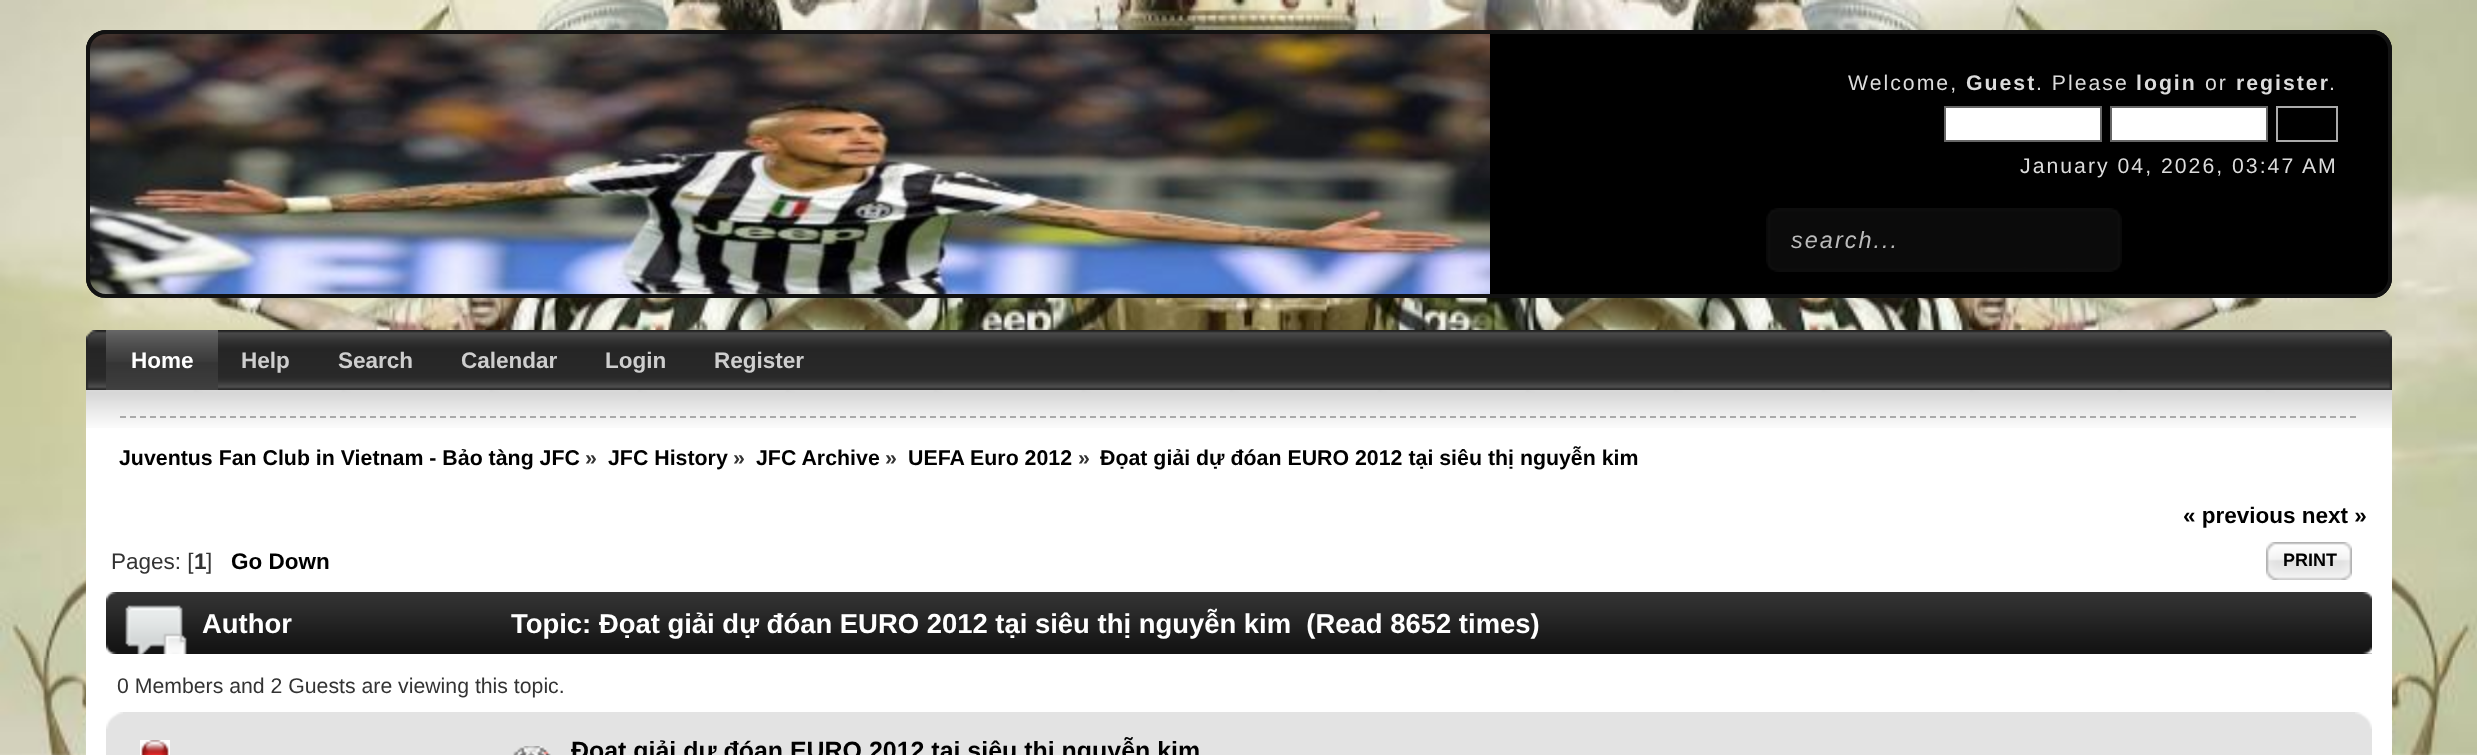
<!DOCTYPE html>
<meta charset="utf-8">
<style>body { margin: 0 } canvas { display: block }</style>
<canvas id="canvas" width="2477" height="755"></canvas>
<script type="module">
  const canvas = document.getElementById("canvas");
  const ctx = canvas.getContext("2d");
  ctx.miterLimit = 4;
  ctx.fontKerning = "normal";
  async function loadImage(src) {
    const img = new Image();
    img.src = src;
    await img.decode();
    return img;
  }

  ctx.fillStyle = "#ffffff";
  ctx.fillRect(0, 0, 2477, 755);
  ctx.drawImage(await loadImage("img1.png"), 0, 0, 2477, 755);
  ctx.fillStyle = "#000000";
  ctx.beginPath();
  ctx.roundRect(86, 30, 2306, 268, 20);
  ctx.fill();
  ctx.drawImage(await loadImage("img2.png"), 90, 34, 1400, 264);
  ctx.beginPath();
  ctx.roundRect(88, 32, 2302, 264, 18);
  ctx.strokeStyle = "#121212";
  ctx.lineWidth = 4;
  ctx.stroke();
  ctx.letterSpacing = "2px";
  ctx.font = "21.25px Liberation Sans";
  ctx.fillStyle = "#dcdcdc";
  ctx.fillText("Welcome,", 1848, 90);
  ctx.font = "bold 21.25px Liberation Sans";
  ctx.fillText("Guest", 1966, 90);
  ctx.font = "21.25px Liberation Sans";
  ctx.fillText(". Please", 2036, 90);
  ctx.font = "bold 21.25px Liberation Sans";
  ctx.fillText("login", 2136, 90);
  ctx.font = "21.25px Liberation Sans";
  ctx.fillText("or", 2205, 90);
  ctx.font = "bold 21.25px Liberation Sans";
  ctx.fillText("register", 2236, 90);
  ctx.font = "21.25px Liberation Sans";
  ctx.fillText(".", 2329, 90);
  ctx.fillStyle = "#ffffff";
  ctx.beginPath();
  ctx.rect(1945, 107, 156, 34);
  ctx.fill();
  ctx.strokeStyle = "#666666";
  ctx.lineWidth = 2;
  ctx.stroke();
  ctx.beginPath();
  ctx.rect(2111, 107, 156, 34);
  ctx.fill();
  ctx.stroke();
  ctx.strokeStyle = "#aaaaaa";
  ctx.strokeRect(2277, 107, 60, 34);
  ctx.fillStyle = "#dcdcdc";
  ctx.fillText("January 04, 2026, 03:47 AM", 2020, 173);
  ctx.drawImage(await loadImage("img3.png"), 1766, 208, 356, 64);
  ctx.font = "italic 23.5px Liberation Sans";
  ctx.fillStyle = "#bbbbbb";
  ctx.fillText("search...", 1791, 248);
  ctx.drawImage(await loadImage("img4.png"), 2370, 330, 22, 60);
  ctx.drawImage(await loadImage("img5.png"), 86, 330, 20, 60);
  ctx.drawImage(await loadImage("img6.png"), 218, 330, 2152, 60);
  ctx.drawImage(await loadImage("img7.png"), 106, 330, 112, 60);
  ctx.letterSpacing = "0px";
  ctx.font = "bold 22.5px Liberation Sans";
  ctx.fillStyle = "#ffffff";
  ctx.fillText("Home", 131, 368);
  ctx.fillStyle = "#cecece";
  ctx.fillText("Help", 241, 368);
  ctx.fillText("Search", 338, 368);
  ctx.fillText("Calendar", 461, 368);
  ctx.fillText("Login", 605, 368);
  ctx.fillText("Register", 714, 368);
  ctx.fillStyle = "#ffffff";
  ctx.fillRect(86, 428, 2306, 327);
  ctx.drawImage(await loadImage("img8.png"), 86, 390, 2306, 38);
  ctx.beginPath();
  ctx.moveTo(120, 417);
  ctx.lineTo(2358, 417);
  ctx.setLineDash([6, 4]);
  ctx.stroke();
  ctx.font = "bold 21.35px Liberation Sans";
  ctx.fillStyle = "#000000";
  ctx.fillText("Juventus Fan Club in Vietnam - Bảo tàng JFC", 119, 465);
  ctx.fillStyle = "#333333";
  ctx.fillText("»", 585, 465);
  ctx.fillStyle = "#000000";
  ctx.fillText("JFC History", 608, 465);
  ctx.fillStyle = "#333333";
  ctx.fillText("»", 733, 465);
  ctx.fillStyle = "#000000";
  ctx.fillText("JFC Archive", 756, 465);
  ctx.fillStyle = "#333333";
  ctx.fillText("»", 885, 465);
  ctx.fillStyle = "#000000";
  ctx.fillText("UEFA Euro 2012", 908, 465);
  ctx.fillStyle = "#333333";
  ctx.fillText("»", 1078, 465);
  ctx.fillStyle = "#000000";
  ctx.fillText("Đọat giải dự đóan EURO 2012 tại siêu thị nguyễn kim", 1100, 465);
  ctx.font = "bold 22.5px Liberation Sans";
  ctx.fillText("« previous next »", 2183, 523);
  ctx.font = "22.5px Liberation Sans";
  ctx.fillStyle = "#333333";
  ctx.fillText("Pages: [", 111, 569);
  ctx.font = "bold 22.5px Liberation Sans";
  ctx.fillText("1", 194, 569);
  ctx.font = "22.5px Liberation Sans";
  ctx.fillText("]", 206, 569);
  ctx.font = "bold 22.5px Liberation Sans";
  ctx.fillStyle = "#000000";
  ctx.fillText("Go Down", 231, 569);
  ctx.drawImage(await loadImage("img9.png"), 2266, 542, 75, 38);
  ctx.drawImage(await loadImage("img10.png"), 2341, 542, 11, 38);
  ctx.font = "bold 18px Liberation Sans";
  ctx.fillText("PRINT", 2283, 566);
  ctx.drawImage(await loadImage("img11.png"), 106, 592, 2266, 62);
  ctx.drawImage(await loadImage("img12.png"), 2362, 592, 10, 62);
  ctx.drawImage(await loadImage("img13.png"), 125, 605, 62, 49);
  ctx.font = "bold 27.45px Liberation Sans";
  ctx.fillStyle = "#ffffff";
  ctx.fillText("Author", 202, 633);
  ctx.fillText("Topic: Đọat giải dự đóan EURO 2012 tại siêu thị nguyễn kim  (Read 8652 times)", 511, 633);
  ctx.font = "21.25px Liberation Sans";
  ctx.fillStyle = "#333333";
  ctx.fillText("0 Members and 2 Guests are viewing this topic.", 117, 693);
  ctx.fillStyle = "#e3e3e3";
  ctx.fillRect(106, 712, 2266, 43);
  ctx.drawImage(await loadImage("img14.png"), 106, 712, 17, 17);
  ctx.drawImage(await loadImage("img15.png"), 2355, 712, 17, 17);
  ctx.drawImage(await loadImage("img16.png"), 140, 740, 30, 15);
  ctx.drawImage(await loadImage("img17.png"), 513, 746, 38, 9);
  ctx.font = "bold 24.95px Liberation Sans";
  ctx.fillStyle = "#000000";
  ctx.fillText("Đọat giải dự đóan EURO 2012 tại siêu thị nguyễn kim", 571, 759);
</script>
